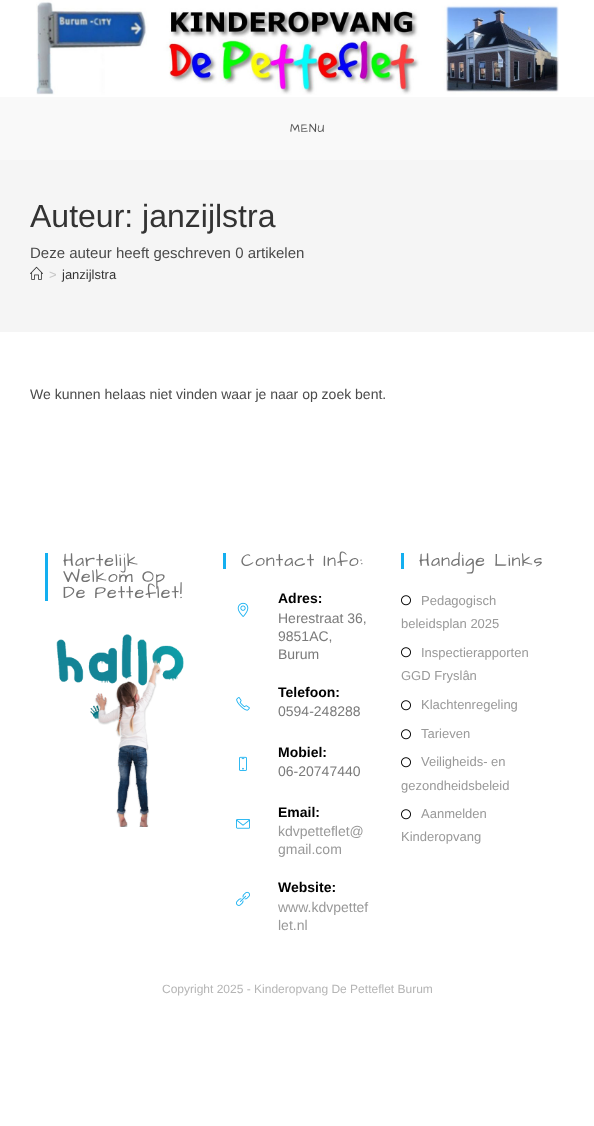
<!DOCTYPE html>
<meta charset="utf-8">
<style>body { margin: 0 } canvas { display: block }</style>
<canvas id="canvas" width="594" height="1126"></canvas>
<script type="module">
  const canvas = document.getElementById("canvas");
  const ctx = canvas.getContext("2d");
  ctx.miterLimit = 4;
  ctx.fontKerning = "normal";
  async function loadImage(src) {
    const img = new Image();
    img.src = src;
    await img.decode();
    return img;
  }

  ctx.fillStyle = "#ffffff";
  ctx.fillRect(0, 0, 594, 1126);
  ctx.drawImage(await loadImage("img1.png"), 36, 0, 523, 95);
  ctx.fillStyle = "#f9f9f9";
  ctx.fillRect(0, 97, 594, 63);
  ctx.letterSpacing = "1px";
  ctx.font = "12px Architects Daughter";
  ctx.fillStyle = "#555555";
  ctx.fillText("MENU", 290, 132);
  ctx.fillStyle = "#f5f5f5";
  ctx.fillRect(0, 160, 594, 172);
  ctx.letterSpacing = "0px";
  ctx.font = "32px Liberation Sans";
  ctx.fillStyle = "#333333";
  ctx.fillText("Auteur: janzijlstra", 30, 227);
  ctx.font = "15px Liberation Sans";
  ctx.fillStyle = "#4a4a4a";
  ctx.fillText("Deze auteur heeft geschreven 0 artikelen", 30, 258);
  ctx.drawImage(await loadImage("img2.png"), 30, 266, 13, 14);
  ctx.font = "13px Liberation Sans";
  ctx.fillStyle = "#c6c6c6";
  ctx.fillText(">", 49, 279);
  ctx.fillStyle = "#333333";
  ctx.fillText("janzijlstra", 62, 279);
  ctx.font = "14px Liberation Sans";
  ctx.fillStyle = "#4a4a4a";
  ctx.fillText("We kunnen helaas niet vinden waar je naar op zoek bent.", 30, 399);
  ctx.fillStyle = "#13aff0";
  ctx.fillRect(45, 553, 3, 48);
  ctx.letterSpacing = "1px";
  ctx.font = "18px Architects Daughter";
  ctx.fillStyle = "#727272";
  ctx.fillText("Hartelijk", 63, 566);
  ctx.fillText("Welkom Op", 63, 582);
  ctx.fillText("De Petteflet!", 63, 598);
  ctx.drawImage(await loadImage("img3.png"), 56, 634, 128, 193);
  ctx.fillStyle = "#13aff0";
  ctx.fillRect(223, 553, 3, 16);
  ctx.fillStyle = "#727272";
  ctx.fillText("Contact Info:", 241, 566);
  ctx.drawImage(await loadImage("img4.png"), 237, 602, 12, 15);
  ctx.letterSpacing = "0px";
  ctx.font = "bold 14px Liberation Sans";
  ctx.fillStyle = "#000000";
  ctx.fillText("Adres:", 278, 603);
  ctx.font = "14px Liberation Sans";
  ctx.fillStyle = "#7a7a7a";
  ctx.fillText("Herestraat 36,", 278, 623);
  ctx.fillText("9851AC,", 278, 641);
  ctx.fillText("Burum", 278, 659);
  ctx.drawImage(await loadImage("img5.png"), 236, 697, 14, 14);
  ctx.font = "bold 14px Liberation Sans";
  ctx.fillStyle = "#000000";
  ctx.fillText("Telefoon:", 278, 697);
  ctx.font = "14px Liberation Sans";
  ctx.fillStyle = "#7a7a7a";
  ctx.fillText("0594-248288", 278, 716);
  ctx.drawImage(await loadImage("img6.png"), 239, 756, 8, 15);
  ctx.font = "bold 14px Liberation Sans";
  ctx.fillStyle = "#000000";
  ctx.fillText("Mobiel:", 278, 757);
  ctx.font = "14px Liberation Sans";
  ctx.fillStyle = "#7a7a7a";
  ctx.fillText("06-20747440", 278, 776);
  ctx.drawImage(await loadImage("img7.png"), 236, 819, 14, 10);
  ctx.font = "bold 14px Liberation Sans";
  ctx.fillStyle = "#000000";
  ctx.fillText("Email:", 278, 817);
  ctx.font = "14px Liberation Sans";
  ctx.fillStyle = "#999999";
  ctx.fillText("kdvpetteflet@", 278, 836);
  ctx.fillText("gmail.com", 278, 854);
  ctx.drawImage(await loadImage("img8.png"), 236, 891, 14, 15);
  ctx.font = "bold 14px Liberation Sans";
  ctx.fillStyle = "#000000";
  ctx.fillText("Website:", 278, 892);
  ctx.font = "14px Liberation Sans";
  ctx.fillStyle = "#999999";
  ctx.fillText("www.kdvpettef", 278, 912);
  ctx.fillText("let.nl", 278, 930);
  ctx.fillStyle = "#13aff0";
  ctx.fillRect(401, 553, 3, 16);
  ctx.letterSpacing = "1px";
  ctx.font = "18px Architects Daughter";
  ctx.fillStyle = "#727272";
  ctx.fillText("Handige Links", 419, 566);
  ctx.drawImage(await loadImage("img9.png"), 401, 595, 10, 11);
  ctx.letterSpacing = "0px";
  ctx.font = "13px Liberation Sans";
  ctx.fillStyle = "#999999";
  ctx.fillText("Pedagogisch", 421, 605);
  ctx.fillText("beleidsplan 2025", 401, 628);
  ctx.drawImage(await loadImage("img9.png"), 401, 647, 10, 11);
  ctx.fillText("Inspectierapporten", 421, 657);
  ctx.fillText("GGD Fryslân", 401, 680);
  ctx.drawImage(await loadImage("img9.png"), 401, 700, 10, 11);
  ctx.fillText("Klachtenregeling", 421, 709);
  ctx.drawImage(await loadImage("img9.png"), 401, 729, 10, 11);
  ctx.fillText("Tarieven", 421, 738);
  ctx.drawImage(await loadImage("img9.png"), 401, 757, 10, 11);
  ctx.fillText("Veiligheids- en", 421, 766);
  ctx.fillText("gezondheidsbeleid", 401, 790);
  ctx.drawImage(await loadImage("img9.png"), 401, 809, 10, 11);
  ctx.fillText("Aanmelden", 421, 818);
  ctx.fillText("Kinderopvang", 401, 841);
  ctx.font = "12px Liberation Sans";
  ctx.fillStyle = "#b5b5b5";
  ctx.fillText("Copyright 2025 - Kinderopvang De Petteflet Burum", 162, 993);
</script>
